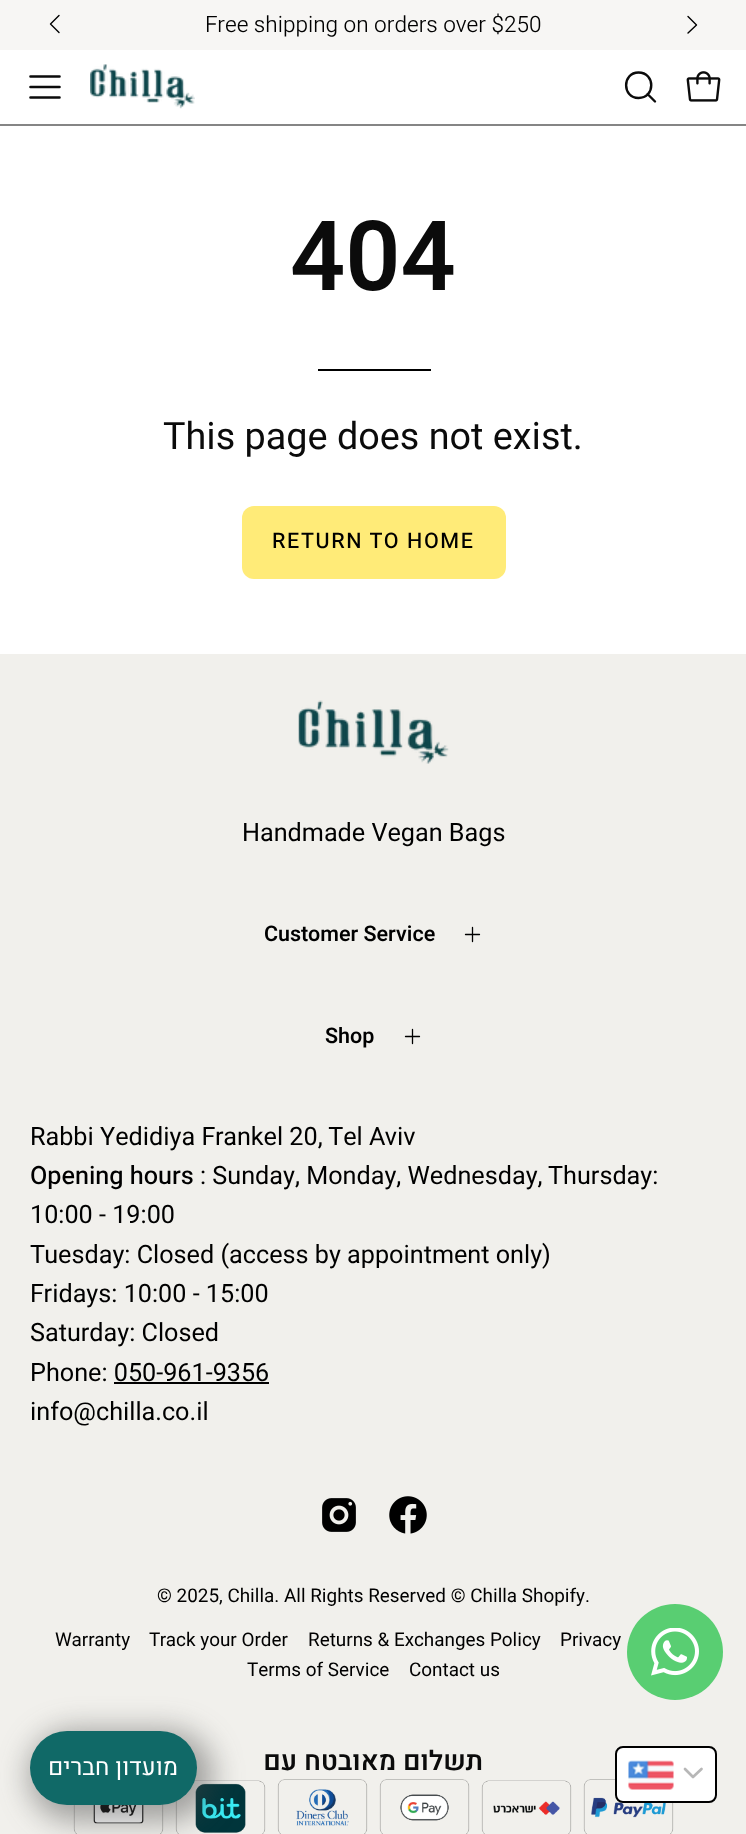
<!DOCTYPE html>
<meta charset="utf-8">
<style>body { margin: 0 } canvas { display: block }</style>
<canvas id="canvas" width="746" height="1834"></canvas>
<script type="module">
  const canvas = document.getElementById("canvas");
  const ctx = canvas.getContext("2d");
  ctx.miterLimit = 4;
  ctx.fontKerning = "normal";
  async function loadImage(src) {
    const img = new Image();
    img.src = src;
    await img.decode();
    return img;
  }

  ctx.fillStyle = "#ffffff";
  ctx.fillRect(0, 0, 746, 1834);
  ctx.fillStyle = "#f7f6f4";
  ctx.fillRect(0, 0, 746, 50);
  ctx.beginPath();
  ctx.moveTo(59, 32.5);
  ctx.lineTo(50.5, 24);
  ctx.lineTo(59, 15.5);
  ctx.strokeStyle = "#000000";
  ctx.lineWidth = 1.4;
  ctx.lineCap = "round";
  ctx.lineJoin = "round";
  ctx.stroke();
  ctx.font = "300 22.5px Heebo";
  ctx.fillStyle = "#000000";
  ctx.fillText("Free shipping on orders over $250", 205, 32);
  ctx.beginPath();
  ctx.moveTo(688, 16.5);
  ctx.lineTo(696.5, 25);
  ctx.lineTo(688, 33);
  ctx.stroke();
  ctx.beginPath();
  ctx.moveTo(30.5, 87);
  ctx.lineTo(59.5, 87);
  ctx.moveTo(30.5, 76.5);
  ctx.lineTo(59.5, 76.5);
  ctx.moveTo(30.5, 97.5);
  ctx.lineTo(59.5, 97.5);
  ctx.strokeStyle = "#0b0b0b";
  ctx.lineWidth = 2.6;
  ctx.stroke();
  ctx.drawImage(await loadImage("img1.png"), 90, 64, 105, 45);
  ctx.beginPath();
  ctx.moveTo(638.5, 98);
  ctx.bezierCurveTo(655.5, 98, 655.5, 72.5, 638.5, 72.5);
  ctx.bezierCurveTo(622, 72.5, 622, 98, 638.5, 98);
  ctx.closePath();
  ctx.moveTo(647.5, 94);
  ctx.lineTo(655, 101.5);
  ctx.lineWidth = 2.4;
  ctx.stroke();
  ctx.drawImage(await loadImage("img2.png"), 686, 71, 35, 31);
  ctx.fillStyle = "#858585";
  ctx.fillRect(0, 124, 746, 2);
  ctx.font = "600 97px Heebo";
  ctx.fillStyle = "#0b0b0b";
  ctx.fillText("404", 290, 290);
  ctx.fillStyle = "#000000";
  ctx.fillRect(318, 369, 113, 2);
  ctx.font = "37.75px Heebo";
  ctx.fillStyle = "#0b0b0b";
  ctx.fillText("This page does not exist.", 163, 449);
  ctx.fillStyle = "#ffeb78";
  ctx.beginPath();
  ctx.roundRect(242, 506, 264, 73, 12);
  ctx.fill();
  ctx.letterSpacing = "1.6px";
  ctx.font = "500 21.5px Heebo";
  ctx.fillStyle = "#000000";
  ctx.fillText("RETURN TO HOME", 272, 548);
  ctx.fillStyle = "#f1f0ec";
  ctx.fillRect(0, 654, 746, 1180);
  ctx.drawImage(await loadImage("img3.png"), 298, 700, 151, 64);
  ctx.letterSpacing = "0px";
  ctx.font = "25.2px Heebo";
  ctx.fillStyle = "#000000";
  ctx.fillText("Handmade Vegan Bags", 242, 841);
  ctx.font = "600 21.5px Heebo";
  ctx.fillText("Customer Service", 264, 941);
  ctx.beginPath();
  ctx.moveTo(465.5, 934.5);
  ctx.lineTo(479.5, 934.5);
  ctx.moveTo(472.5, 927.5);
  ctx.lineTo(472.5, 941.5);
  ctx.strokeStyle = "#000000";
  ctx.lineWidth = 1.3;
  ctx.stroke();
  ctx.fillText("Shop", 325, 1043);
  ctx.beginPath();
  ctx.moveTo(405.5, 1036.5);
  ctx.lineTo(419.5, 1036.5);
  ctx.moveTo(412.5, 1029.5);
  ctx.lineTo(412.5, 1043.5);
  ctx.stroke();
  ctx.font = "25.2px Heebo";
  ctx.fillText("Rabbi Yedidiya Frankel 20, Tel Aviv", 30, 1145);
  ctx.font = "500 25.2px Heebo";
  ctx.fillText("Opening hours", 30, 1184);
  ctx.font = "25.2px Heebo";
  ctx.fillText(": Sunday, Monday, Wednesday, Thursday:", 200, 1184);
  ctx.fillText("10:00 - 19:00", 30, 1223);
  ctx.fillText("Tuesday: Closed (access by appointment only)", 30, 1263);
  ctx.fillText("Fridays: 10:00 - 15:00", 30, 1302);
  ctx.fillText("Saturday: Closed", 30, 1341);
  ctx.fillText("Phone: 050-961-9356", 30, 1381);
  ctx.fillRect(114, 1382, 155, 2);
  ctx.fillText("info@chilla.co.il", 30, 1420);
  ctx.drawImage(await loadImage("img4.png"), 322, 1498, 34, 34);
  ctx.drawImage(await loadImage("img5.png"), 389, 1496, 38, 38);
  ctx.font = "18.9px Heebo";
  ctx.fillText("© 2025, Chilla. All Rights Reserved © Chilla Shopify.", 157, 1602);
  ctx.fillText("Warranty", 55, 1646);
  ctx.fillText("Track your Order", 149, 1646);
  ctx.fillText("Returns & Exchanges Policy", 308, 1646);
  ctx.fillText("Privacy", 560, 1646);
  ctx.fillText("Terms of Service", 247, 1676);
  ctx.fillText("Contact us", 409, 1676);
  ctx.direction = "rtl";
  ctx.font = "600 27px Heebo";
  ctx.fillStyle = "#0b0b0b";
  ctx.fillText("תשלום מאובטח עם", 483, 1770);
  ctx.drawImage(await loadImage("img6.png"), 73, 1804, 91, 30);
  ctx.drawImage(await loadImage("img7.png"), 175, 1780, 91, 54);
  ctx.drawImage(await loadImage("img8.png"), 277, 1779, 91, 55);
  ctx.drawImage(await loadImage("img9.png"), 379, 1779, 91, 55);
  ctx.drawImage(await loadImage("img10.png"), 481, 1780, 91, 54);
  ctx.drawImage(await loadImage("img11.png"), 583, 1779, 91, 55);
  ctx.fillStyle = "#59ce72";
  ctx.beginPath();
  ctx.arc(675, 1652, 48, 0, Math.PI * 2);
  ctx.fill();
  ctx.drawImage(await loadImage("img12.png"), 651, 1628, 48, 48);
  ctx.fillStyle = "rgba(66, 66, 66, 0.47)";
  ctx.filter = "blur(15px)";
  ctx.beginPath();
  ctx.roundRect(29, 1730, 184, 91, 45.5);
  ctx.fill();
  ctx.filter = "none";
  ctx.fillStyle = "#106967";
  ctx.beginPath();
  ctx.roundRect(30, 1731, 167, 74, 37);
  ctx.fill();
  ctx.font = "24px Heebo";
  ctx.fillStyle = "#ffffff";
  ctx.fillText("מועדון חברים", 178, 1775);
  ctx.beginPath();
  ctx.roundRect(616, 1747, 100, 55, 7);
  ctx.fill();
  ctx.lineWidth = 2;
  ctx.lineJoin = "miter";
  ctx.stroke();
  ctx.drawImage(await loadImage("img13.png"), 628, 1760, 46, 30);
  ctx.beginPath();
  ctx.moveTo(685, 1769);
  ctx.lineTo(693, 1777);
  ctx.lineTo(701.5, 1769);
  ctx.strokeStyle = "#b7b7b7";
  ctx.lineWidth = 2.7;
  ctx.lineJoin = "round";
  ctx.stroke();
</script>
